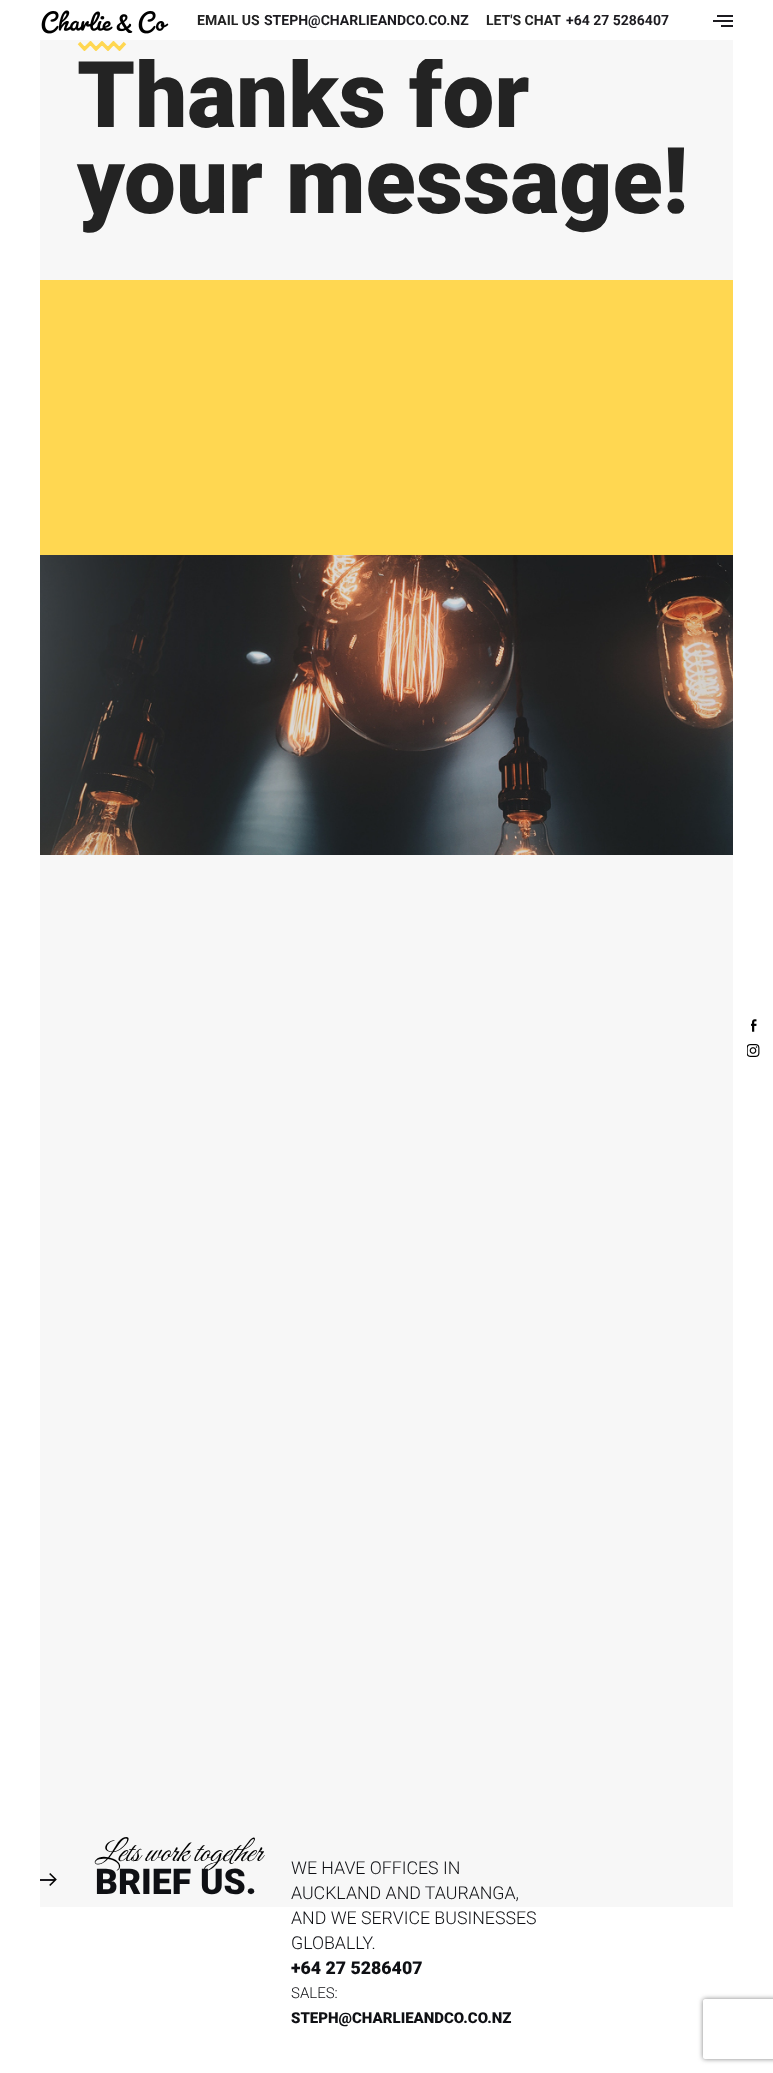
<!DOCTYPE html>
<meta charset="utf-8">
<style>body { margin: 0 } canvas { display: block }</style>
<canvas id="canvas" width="773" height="2073"></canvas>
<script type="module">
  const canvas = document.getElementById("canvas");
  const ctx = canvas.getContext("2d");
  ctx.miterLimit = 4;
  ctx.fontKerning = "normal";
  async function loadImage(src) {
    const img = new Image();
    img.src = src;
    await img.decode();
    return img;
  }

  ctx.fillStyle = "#ffffff";
  ctx.fillRect(0, 0, 773, 2073);
  ctx.drawImage(await loadImage("img1.png"), 41, 10, 128, 24);
  ctx.font = "bold 14px Roboto";
  ctx.fillStyle = "#232323";
  ctx.fillText("EMAIL US", 197, 25);
  ctx.fillStyle = "#1c1b20";
  ctx.fillText("STEPH@CHARLIEANDCO.CO.NZ", 264, 25);
  ctx.fillStyle = "#232323";
  ctx.fillText("LET'S CHAT", 486, 25);
  ctx.fillStyle = "#1c1b20";
  ctx.fillText("+64 27 5286407", 566, 25);
  ctx.fillRect(717, 15, 16, 2);
  ctx.fillRect(713, 20, 20, 2);
  ctx.fillRect(721, 25, 12, 2);
  ctx.drawImage(await loadImage("img2.png"), 751, 1019, 6, 13);
  ctx.drawImage(await loadImage("img3.png"), 747, 1044, 13, 13);
  ctx.fillStyle = "#f7f7f7";
  ctx.fillRect(40, 40, 693, 1867);
  ctx.save();
  ctx.beginPath();
  ctx.rect(77, 41, 50, 10);
  ctx.clip();
  ctx.beginPath();
  ctx.moveTo(79, 43);
  ctx.lineTo(84.5, 49);
  ctx.lineTo(90.5, 43);
  ctx.lineTo(96, 49);
  ctx.lineTo(102, 43);
  ctx.lineTo(108, 49);
  ctx.lineTo(113.5, 43);
  ctx.lineTo(119.5, 49);
  ctx.lineTo(125, 43);
  ctx.strokeStyle = "#ffd751";
  ctx.lineWidth = 3.4;
  ctx.stroke();
  ctx.restore();
  ctx.save();
  ctx.beginPath();
  ctx.rect(77, 59, 453, 84);
  ctx.clip();
  ctx.font = "900 92.25px Roboto";
  ctx.fillStyle = "#232323";
  ctx.fillText("Thanks for", 77, 127);
  ctx.restore();
  ctx.font = "900 92.25px Roboto";
  ctx.fillStyle = "#232323";
  ctx.fillText("your message!", 77, 213);
  ctx.fillStyle = "#ffd751";
  ctx.fillRect(40, 280, 693, 275);
  ctx.drawImage(await loadImage("img4.png"), 40, 555, 693, 300);
  ctx.font = "italic 30.5px Great Vibes";
  ctx.fillStyle = "#000000";
  ctx.fillText("Lets work together", 95, 1861);
  ctx.fillStyle = "#1c1b20";
  ctx.fillRect(40, 1879, 15, 2);
  ctx.drawImage(await loadImage("img5.png"), 49, 1873, 8, 13);
  ctx.font = "900 35.5px Roboto";
  ctx.fillStyle = "#0f1014";
  ctx.fillText("BRIEF US.", 95, 1894);
  ctx.font = "300 17.75px Roboto";
  ctx.fillText("WE HAVE OFFICES IN", 291, 1874);
  ctx.fillText("AUCKLAND AND TAURANGA,", 291, 1899);
  ctx.fillText("AND WE SERVICE BUSINESSES", 291, 1924);
  ctx.fillText("GLOBALLY.", 291, 1949);
  ctx.font = "900 17.75px Roboto";
  ctx.fillText("+64 27 5286407", 291, 1974);
  ctx.font = "300 15px Roboto";
  ctx.fillText("SALES:", 291, 1998);
  ctx.font = "900 15px Roboto";
  ctx.fillText("STEPH@CHARLIEANDCO.CO.NZ", 291, 2023);
  ctx.save();
  ctx.beginPath();
  ctx.moveTo(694, 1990);
  ctx.lineTo(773, 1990);
  ctx.lineTo(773, 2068);
  ctx.lineTo(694, 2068);
  ctx.closePath();
  ctx.moveTo(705, 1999);
  ctx.lineTo(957, 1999);
  ctx.bezierCurveTo(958, 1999, 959, 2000, 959, 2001);
  ctx.lineTo(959, 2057);
  ctx.bezierCurveTo(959, 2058, 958, 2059, 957, 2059);
  ctx.lineTo(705, 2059);
  ctx.bezierCurveTo(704, 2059, 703, 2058, 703, 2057);
  ctx.lineTo(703, 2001);
  ctx.bezierCurveTo(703, 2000, 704, 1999, 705, 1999);
  ctx.closePath();
  ctx.clip("evenodd");
  ctx.fillStyle = "#808080";
  ctx.filter = "blur(2.5px)";
  ctx.beginPath();
  ctx.roundRect(703, 1999, 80, 60, 2);
  ctx.fill();
  ctx.filter = "none";
  ctx.restore();
</script>
